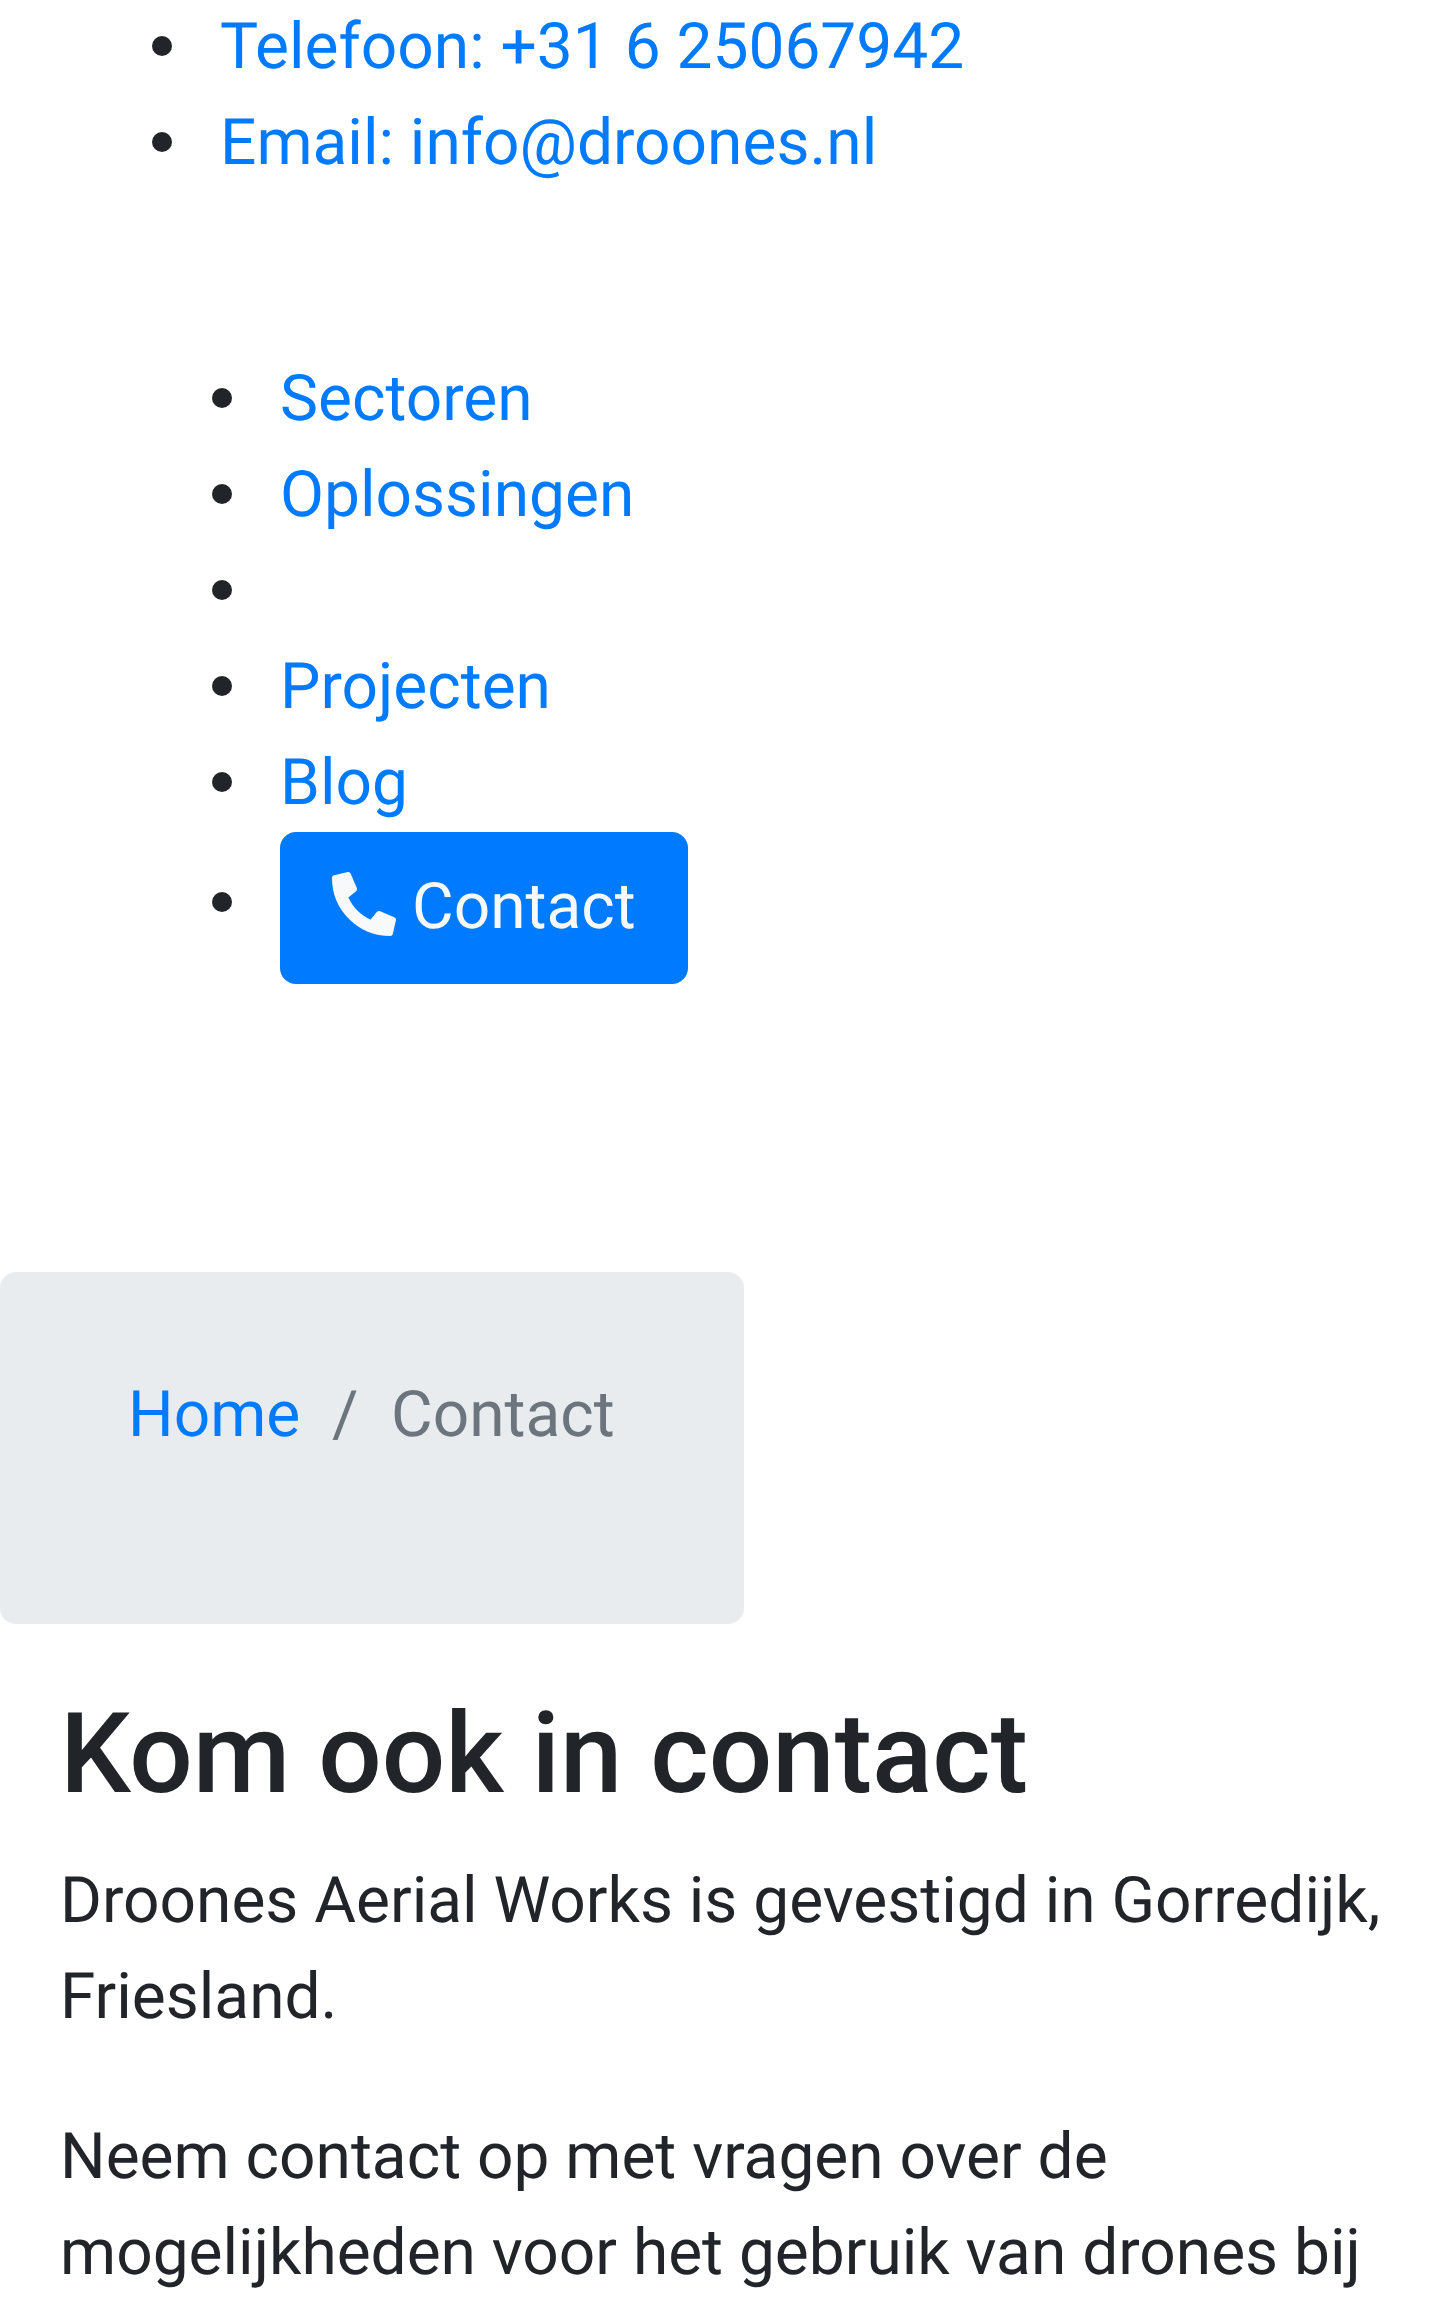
<!DOCTYPE html>
<meta charset="utf-8">
<style>body { margin: 0 } canvas { display: block }</style>
<canvas id="canvas" width="1445" height="2302"></canvas>
<script type="module">
  const canvas = document.getElementById("canvas");
  const ctx = canvas.getContext("2d");
  ctx.miterLimit = 4;
  ctx.fontKerning = "normal";
  async function loadImage(src) {
    const img = new Image();
    img.src = src;
    await img.decode();
    return img;
  }

  ctx.fillStyle = "#ffffff";
  ctx.fillRect(0, 0, 1445, 2302);
  ctx.fillStyle = "#212529";
  ctx.beginPath();
  ctx.arc(162, 46, 10, 0, Math.PI * 2);
  ctx.fill();
  ctx.font = "64px Roboto";
  ctx.fillStyle = "#007bff";
  ctx.fillText("Telefoon: +31 6 25067942", 220, 68);
  ctx.fillStyle = "#212529";
  ctx.beginPath();
  ctx.arc(162, 142, 10, 0, Math.PI * 2);
  ctx.fill();
  ctx.fillStyle = "#007bff";
  ctx.fillText("Email: info@droones.nl", 220, 164);
  ctx.fillStyle = "#212529";
  ctx.beginPath();
  ctx.arc(222, 398, 10, 0, Math.PI * 2);
  ctx.fill();
  ctx.fillStyle = "#007bff";
  ctx.fillText("Sectoren", 280, 420);
  ctx.fillStyle = "#212529";
  ctx.beginPath();
  ctx.arc(222, 494, 10, 0, Math.PI * 2);
  ctx.fill();
  ctx.fillStyle = "#007bff";
  ctx.fillText("Oplossingen", 280, 516);
  ctx.fillStyle = "#212529";
  ctx.beginPath();
  ctx.arc(222, 590, 10, 0, Math.PI * 2);
  ctx.fill();
  ctx.beginPath();
  ctx.arc(222, 686, 10, 0, Math.PI * 2);
  ctx.fill();
  ctx.fillStyle = "#007bff";
  ctx.fillText("Projecten", 280, 708);
  ctx.fillStyle = "#212529";
  ctx.beginPath();
  ctx.arc(222, 782, 10, 0, Math.PI * 2);
  ctx.fill();
  ctx.fillStyle = "#007bff";
  ctx.fillText("Blog", 280, 804);
  ctx.fillStyle = "#212529";
  ctx.beginPath();
  ctx.arc(222, 902, 10, 0, Math.PI * 2);
  ctx.fill();
  ctx.fillStyle = "#007bff";
  ctx.beginPath();
  ctx.roundRect(282, 834, 404, 148, 14);
  ctx.fill();
  ctx.strokeStyle = "#007bff";
  ctx.lineWidth = 4;
  ctx.stroke();
  ctx.drawImage(await loadImage("img1.png"), 332, 872, 64, 64);
  ctx.fillStyle = "#f8f9fa";
  ctx.fillText("Contact", 412, 928);
  ctx.fillStyle = "#e9ecef";
  ctx.beginPath();
  ctx.roundRect(0, 1272, 744, 352, 16);
  ctx.fill();
  ctx.fillStyle = "#007bff";
  ctx.fillText("Home", 128, 1436);
  ctx.fillStyle = "#6c757d";
  ctx.fillText("/", 332, 1436);
  ctx.fillText("Contact", 391, 1436);
  ctx.font = "500 112px Roboto";
  ctx.fillStyle = "#212529";
  ctx.fillText("Kom ook in contact", 60, 1792);
  ctx.font = "64px Roboto";
  ctx.fillText("Droones Aerial Works is gevestigd in Gorredijk,", 60, 1922);
  ctx.fillText("Friesland.", 60, 2018);
  ctx.fillText("Neem contact op met vragen over de", 60, 2178);
  ctx.fillText("mogelijkheden voor het gebruik van drones bij", 60, 2274);
</script>
